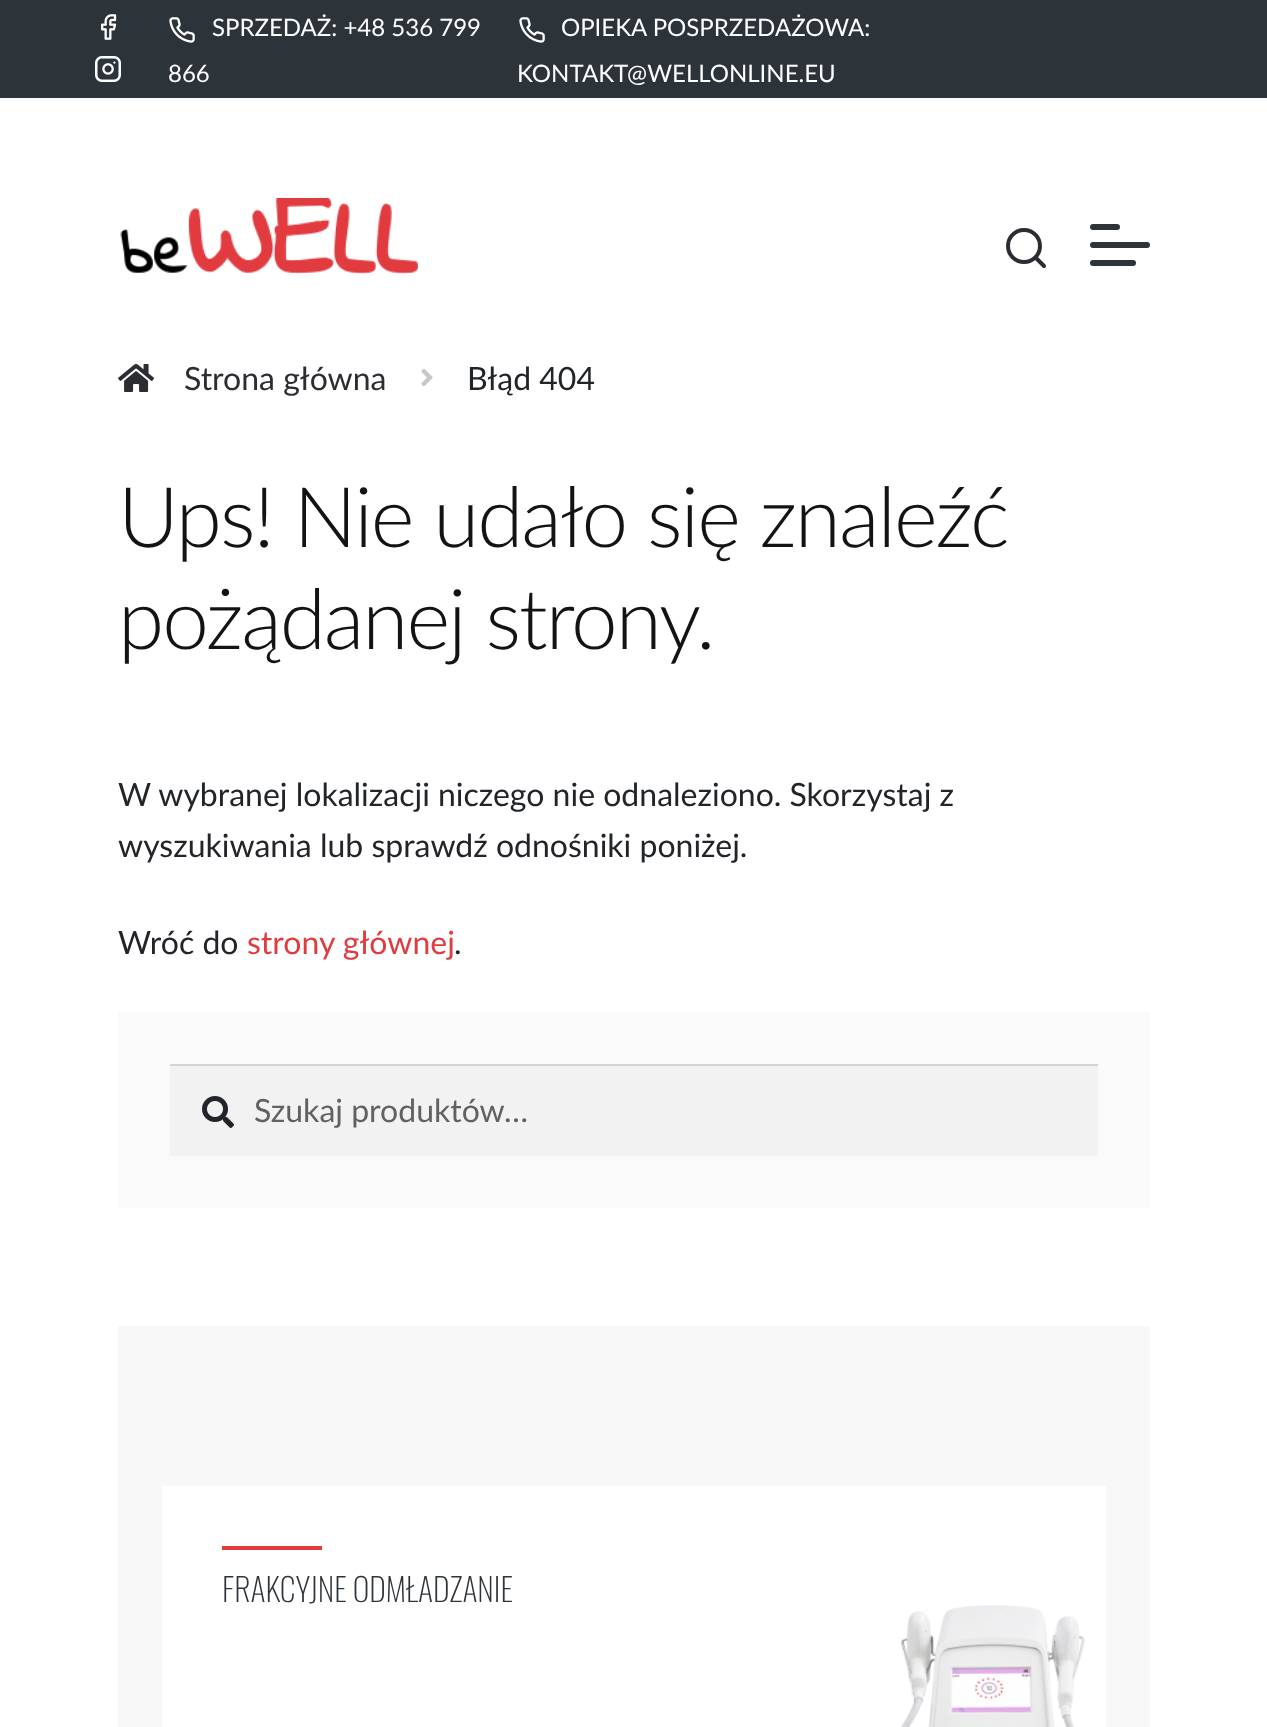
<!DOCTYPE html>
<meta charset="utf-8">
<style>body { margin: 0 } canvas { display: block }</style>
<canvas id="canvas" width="1267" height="1727"></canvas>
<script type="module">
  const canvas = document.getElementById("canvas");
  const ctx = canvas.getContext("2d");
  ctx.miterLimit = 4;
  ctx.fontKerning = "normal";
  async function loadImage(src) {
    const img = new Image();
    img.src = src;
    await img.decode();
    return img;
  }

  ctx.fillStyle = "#ffffff";
  ctx.fillRect(0, 0, 1267, 1727);
  ctx.fillStyle = "#2d3439";
  ctx.fillRect(0, 0, 1267, 98);
  ctx.drawImage(await loadImage("img1.png"), 101, 14, 16, 26);
  ctx.drawImage(await loadImage("img2.png"), 95, 56, 26, 26);
  ctx.drawImage(await loadImage("img3.png"), 169, 17, 26, 26);
  ctx.font = "24px Lato";
  ctx.fillStyle = "#ffffff";
  ctx.fillText("SPRZEDAŻ: +48 536 799", 212, 36);
  ctx.fillText("866", 168, 82);
  ctx.drawImage(await loadImage("img3.png"), 519, 17, 26, 26);
  ctx.fillText("OPIEKA POSPRZEDAŻOWA:", 561, 36);
  ctx.fillText("KONTAKT@WELLONLINE.EU", 517, 82);
  ctx.drawImage(await loadImage("img4.png"), 120, 198, 298, 76);
  ctx.beginPath();
  ctx.arc(1024, 246, 16, 0, Math.PI * 2);
  ctx.strokeStyle = "#2c2d33";
  ctx.lineWidth = 4;
  ctx.stroke();
  ctx.beginPath();
  ctx.moveTo(1044, 266);
  ctx.lineTo(1035.5, 257.5);
  ctx.lineCap = "round";
  ctx.lineJoin = "round";
  ctx.stroke();
  ctx.fillStyle = "#2d3439";
  ctx.beginPath();
  ctx.roundRect(1090, 224, 30, 6, 3);
  ctx.fill();
  ctx.beginPath();
  ctx.roundRect(1090, 242, 60, 6, 3);
  ctx.fill();
  ctx.beginPath();
  ctx.roundRect(1090, 260, 46, 6, 3);
  ctx.fill();
  ctx.drawImage(await loadImage("img5.png"), 118, 364, 36, 28);
  ctx.font = "32px Lato";
  ctx.fillStyle = "#2c2d33";
  ctx.fillText("Strona główna", 184, 390);
  ctx.drawImage(await loadImage("img6.png"), 421, 368, 12, 19);
  ctx.fillStyle = "#212529";
  ctx.fillText("Błąd 404", 467, 390);
  ctx.letterSpacing = "-2px";
  ctx.font = "300 83.75px Lato";
  ctx.fillStyle = "#131315";
  ctx.fillText("Ups! Nie udało się znaleźć", 118, 547);
  ctx.fillText("pożądanej strony.", 118, 649);
  ctx.letterSpacing = "0px";
  ctx.font = "32px Lato";
  ctx.fillStyle = "#212529";
  ctx.fillText("W wybranej lokalizacji niczego nie odnaleziono. Skorzystaj z", 118, 806);
  ctx.fillText("wyszukiwania lub sprawdź odnośniki poniżej.", 118, 857);
  ctx.fillText("Wróć do", 118, 954);
  ctx.fillStyle = "#e13b3f";
  ctx.fillText("strony głównej", 247, 954);
  ctx.fillStyle = "#212529";
  ctx.fillText(".", 454, 954);
  ctx.fillStyle = "#fafafa";
  ctx.fillRect(118, 1012, 1032, 196);
  ctx.fillStyle = "#f2f2f2";
  ctx.fillRect(170, 1066, 928, 90);
  ctx.drawImage(await loadImage("img7.png"), 202, 1096, 32, 32);
  ctx.fillStyle = "#d4d4d4";
  ctx.fillRect(170, 1064, 928, 2);
  ctx.fillStyle = "#616161";
  ctx.fillText("Szukaj produktów…", 254, 1122);
  ctx.fillStyle = "#f8f8f8";
  ctx.fillRect(118, 1326, 1032, 401);
  ctx.fillStyle = "#ffffff";
  ctx.fillRect(162, 1486, 944, 241);
  ctx.drawImage(await loadImage("img8.png"), 900, 1605, 185, 122);
  ctx.fillStyle = "#e13b3f";
  ctx.fillRect(222, 1546, 100, 4);
  ctx.font = "200 32px Oswald";
  ctx.fillStyle = "#2d3439";
  ctx.fillText("FRAKCYJNE ODMŁADZANIE", 222, 1602);
</script>
